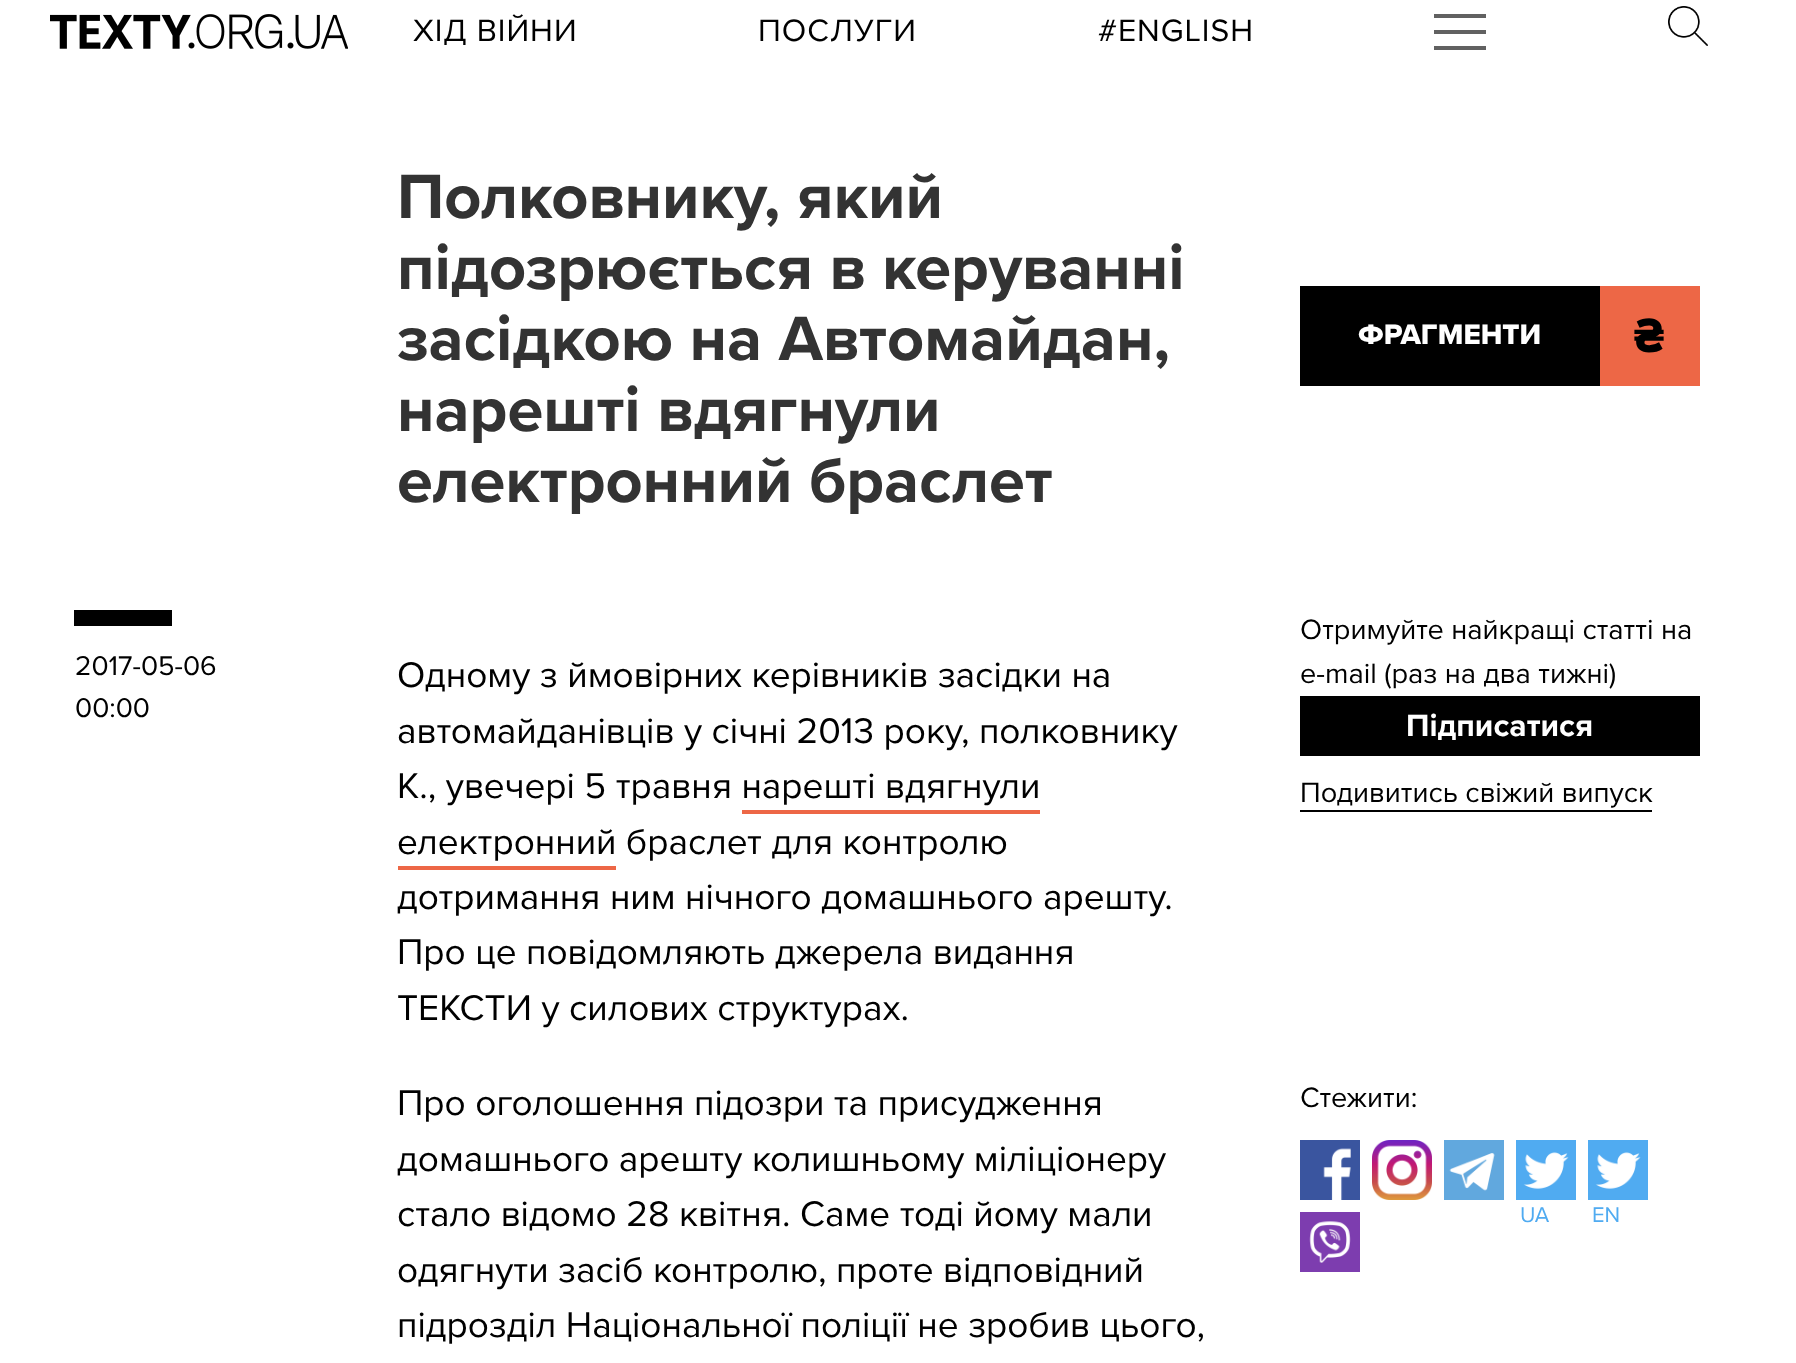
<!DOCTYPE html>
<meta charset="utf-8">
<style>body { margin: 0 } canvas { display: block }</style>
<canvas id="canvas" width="1796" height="1363"></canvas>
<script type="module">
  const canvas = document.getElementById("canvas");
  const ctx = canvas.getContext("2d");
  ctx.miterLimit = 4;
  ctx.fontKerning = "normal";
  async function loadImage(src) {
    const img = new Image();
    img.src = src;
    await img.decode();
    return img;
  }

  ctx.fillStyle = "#ffffff";
  ctx.fillRect(0, 0, 1796, 1363);
  ctx.drawImage(await loadImage("img1.png"), 50, 14, 298, 35);
  ctx.letterSpacing = "1px";
  ctx.font = "32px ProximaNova";
  ctx.fillStyle = "#000000";
  ctx.fillText("ХІД ВІЙНИ", 413, 41);
  ctx.fillText("ПОСЛУГИ", 758, 41);
  ctx.fillText("#ENGLISH", 1098, 41);
  ctx.fillStyle = "#616161";
  ctx.fillRect(1434, 30, 52, 4);
  ctx.fillRect(1434, 14, 52, 4);
  ctx.fillRect(1434, 46, 52, 4);
  ctx.drawImage(await loadImage("img2.png"), 1668, 6, 40, 40);
  ctx.letterSpacing = "0px";
  ctx.font = "bold 64.7px ProximaNova";
  ctx.fillStyle = "#333333";
  ctx.fillText("Полковнику, який", 397, 218);
  ctx.fillText("підозрюється в керуванні", 397, 289);
  ctx.fillText("засідкою на Автомайдан,", 397, 360);
  ctx.fillText("нарешті вдягнули", 397, 431);
  ctx.fillText("електронний браслет", 397, 502);
  ctx.fillStyle = "#000000";
  ctx.fillRect(1300, 286, 300, 100);
  ctx.font = "800 29.25px Proxima Nova";
  ctx.fillStyle = "#ffffff";
  ctx.fillText("ФРАГМЕНТИ", 1358, 344);
  ctx.fillStyle = "#ed6746";
  ctx.fillRect(1600, 286, 100, 100);
  ctx.font = "800 50px Proxima Nova";
  ctx.fillStyle = "#000000";
  ctx.fillText("₴", 1634, 352);
  ctx.fillRect(74, 610, 98, 16);
  ctx.font = "28px ProximaNova";
  ctx.fillText("2017-05-06", 75, 675);
  ctx.fillText("00:00", 75, 717);
  ctx.font = "37px ProximaNova";
  ctx.fillText("Одному з ймовірних керівників засідки на", 397, 687);
  ctx.fillText("автомайданівців у січні 2013 року, полковнику", 397, 743);
  ctx.fillText("К., увечері 5 травня нарешті вдягнули", 397, 798);
  ctx.fillText("електронний браслет для контролю", 397, 854);
  ctx.fillStyle = "#ed6746";
  ctx.fillRect(742, 810, 298, 4);
  ctx.fillRect(398, 866, 218, 4);
  ctx.fillStyle = "#000000";
  ctx.fillText("дотримання ним нічного домашнього арешту.", 397, 909);
  ctx.fillText("Про це повідомляють джерела видання", 397, 964);
  ctx.fillText("ТЕКСТИ у силових структурах.", 397, 1020);
  ctx.font = "29px ProximaNova";
  ctx.fillText("Отримуйте найкращі статті на", 1300, 639);
  ctx.fillText("e-mail (раз на два тижні)", 1300, 683);
  ctx.fillRect(1300, 696, 400, 60);
  ctx.font = "bold 32px ProximaNova";
  ctx.fillStyle = "#ffffff";
  ctx.fillText("Підписатися", 1406, 736);
  ctx.font = "29px ProximaNova";
  ctx.fillStyle = "#000000";
  ctx.fillText("Подивитись свіжий випуск", 1300, 802);
  ctx.fillRect(1300, 810, 352, 2);
  ctx.font = "37px ProximaNova";
  ctx.fillText("Про оголошення підозри та присудження", 397, 1115);
  ctx.fillText("домашнього арешту колишньому міліціонеру", 397, 1171);
  ctx.fillText("стало відомо 28 квітня. Саме тоді йому мали", 397, 1226);
  ctx.fillText("одягнути засіб контролю, проте відповідний", 397, 1282);
  ctx.fillText("підрозділ Національної поліції не зробив цього,", 397, 1337);
  ctx.font = "29px ProximaNova";
  ctx.fillText("Стежити:", 1300, 1107);
  ctx.drawImage(await loadImage("img3.png"), 1300, 1140, 60, 60);
  ctx.drawImage(await loadImage("img4.png"), 1372, 1140, 60, 60);
  ctx.drawImage(await loadImage("img5.png"), 1444, 1140, 60, 60);
  ctx.drawImage(await loadImage("img6.png"), 1300, 1212, 60, 60);
  ctx.drawImage(await loadImage("img7.png"), 1516, 1140, 60, 60);
  ctx.font = "22px ProximaNova";
  ctx.fillStyle = "#50abf1";
  ctx.fillText("UA", 1520, 1222);
  ctx.drawImage(await loadImage("img7.png"), 1588, 1140, 60, 60);
  ctx.fillText("EN", 1592, 1222);
</script>
